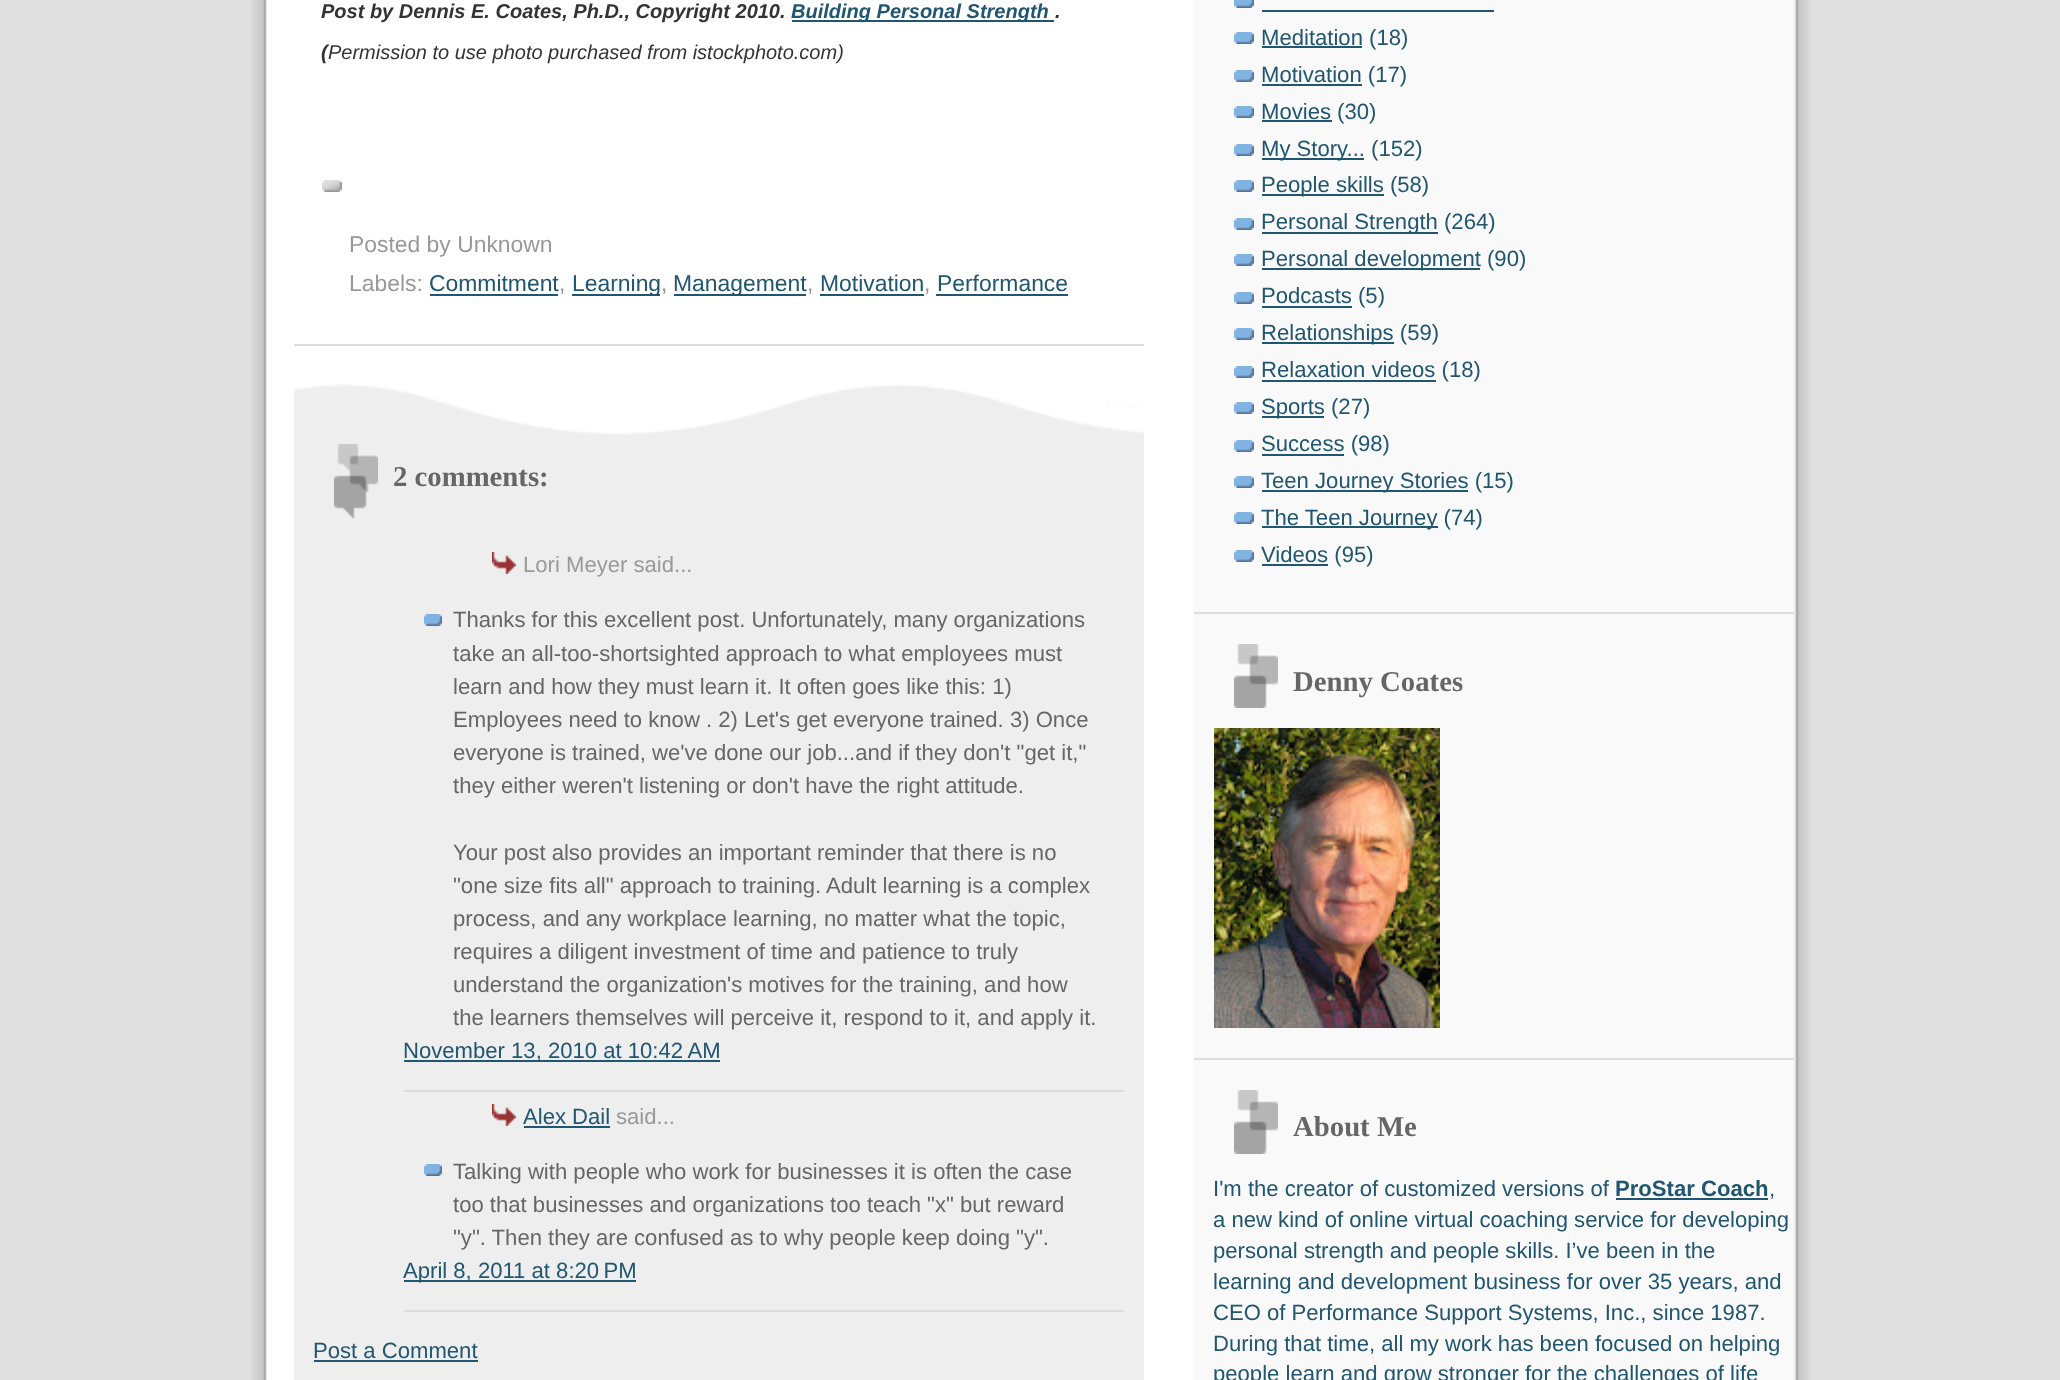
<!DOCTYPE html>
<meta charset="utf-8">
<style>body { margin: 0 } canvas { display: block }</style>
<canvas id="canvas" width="2060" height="1380"></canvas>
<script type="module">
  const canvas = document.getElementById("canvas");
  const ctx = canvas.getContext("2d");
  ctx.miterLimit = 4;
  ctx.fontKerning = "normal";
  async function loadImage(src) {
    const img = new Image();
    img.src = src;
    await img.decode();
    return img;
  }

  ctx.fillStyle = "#e0e0e0";
  ctx.fillRect(0, 0, 2060, 1380);
  ctx.drawImage(await loadImage("img1.png"), 251, 0, 1560, 1380);
  ctx.fillStyle = "#dddddd";
  ctx.fillRect(294, 344, 850, 2);
  ctx.font = "italic bold 20px Liberation Sans";
  ctx.fillStyle = "#333333";
  ctx.fillText("Post by Dennis E. Coates, Ph.D., Copyright 2010.", 321, 18);
  ctx.fillStyle = "#215670";
  ctx.fillRect(792, 20, 262, 2);
  ctx.fillText("Building Personal Strength", 791, 18);
  ctx.fillStyle = "#333333";
  ctx.fillText(".", 1055, 18);
  ctx.fillText("(", 321, 59);
  ctx.font = "italic 20px Liberation Sans";
  ctx.fillText("Permission to use photo purchased from istockphoto.com)", 328, 59);
  ctx.drawImage(await loadImage("img2.png"), 322, 180, 20, 12);
  ctx.font = "22.9px Liberation Sans";
  ctx.fillStyle = "#999999";
  ctx.fillText("Posted by Unknown", 349, 252);
  ctx.fillText("Labels:", 349, 291);
  ctx.fillStyle = "#215670";
  ctx.fillText("Commitment", 429, 291);
  ctx.fillStyle = "#999999";
  ctx.fillText(",", 559, 291);
  ctx.fillStyle = "#215670";
  ctx.fillRect(430, 294, 128, 2);
  ctx.fillRect(572, 294, 88, 2);
  ctx.fillText("Learning", 572, 291);
  ctx.fillStyle = "#999999";
  ctx.fillText(",", 661, 291);
  ctx.fillStyle = "#215670";
  ctx.fillRect(674, 294, 132, 2);
  ctx.fillText("Management", 673, 291);
  ctx.fillStyle = "#999999";
  ctx.fillText(",", 807, 291);
  ctx.fillStyle = "#215670";
  ctx.fillText("Motivation", 820, 291);
  ctx.fillStyle = "#999999";
  ctx.fillText(",", 924, 291);
  ctx.fillStyle = "#215670";
  ctx.fillRect(820, 294, 104, 2);
  ctx.fillRect(936, 294, 132, 2);
  ctx.fillText("Performance", 937, 291);
  ctx.fillStyle = "#eeeeee";
  ctx.fillRect(294, 385, 850, 995);
  ctx.drawImage(await loadImage("img3.png"), 294, 384, 850, 51);
  ctx.drawImage(await loadImage("img4.png"), 334, 444, 44, 74);
  ctx.font = "bold 28.75px Liberation Serif";
  ctx.fillStyle = "#666666";
  ctx.fillText("2 comments:", 393, 486);
  ctx.drawImage(await loadImage("img5.png"), 492, 552, 24, 22);
  ctx.font = "22.1px Liberation Sans";
  ctx.fillStyle = "#999999";
  ctx.fillText("Lori Meyer said...", 523, 572);
  ctx.drawImage(await loadImage("img6.png"), 424, 614, 18, 12);
  ctx.fillStyle = "#666666";
  ctx.fillText("Thanks for this excellent post. Unfortunately, many organizations", 453, 627);
  ctx.fillText("take an all-too-shortsighted approach to what employees must", 453, 661);
  ctx.fillText("learn and how they must learn it. It often goes like this: 1)", 453, 694);
  ctx.fillText("Employees need to know . 2) Let's get everyone trained. 3) Once", 453, 727);
  ctx.fillText("everyone is trained, we've done our job...and if they don't \"get it,\"", 453, 760);
  ctx.fillText("they either weren't listening or don't have the right attitude.", 453, 793);
  ctx.fillText("Your post also provides an important reminder that there is no", 453, 860);
  ctx.fillText("\"one size fits all\" approach to training. Adult learning is a complex", 453, 893);
  ctx.fillText("process, and any workplace learning, no matter what the topic,", 453, 926);
  ctx.fillText("requires a diligent investment of time and patience to truly", 453, 959);
  ctx.fillText("understand the organization's motives for the training, and how", 453, 992);
  ctx.fillText("the learners themselves will perceive it, respond to it, and apply it.", 453, 1025);
  ctx.fillStyle = "#dddddd";
  ctx.fillRect(404, 1090, 720, 2);
  ctx.fillStyle = "#215670";
  ctx.fillRect(404, 1060, 316, 2);
  ctx.fillText("November 13, 2010 at 10:42 AM", 403, 1058);
  ctx.drawImage(await loadImage("img5.png"), 492, 1104, 24, 22);
  ctx.fillText("Alex Dail", 523, 1124);
  ctx.fillRect(524, 1126, 86, 2);
  ctx.fillStyle = "#999999";
  ctx.fillText("said...", 616, 1124);
  ctx.drawImage(await loadImage("img6.png"), 424, 1164, 18, 12);
  ctx.fillStyle = "#666666";
  ctx.fillText("Talking with people who work for businesses it is often the case", 453, 1179);
  ctx.fillText("too that businesses and organizations too teach \"x\" but reward", 453, 1212);
  ctx.fillText("\"y\". Then they are confused as to why people keep doing \"y\".", 453, 1245);
  ctx.fillStyle = "#dddddd";
  ctx.fillRect(404, 1310, 720, 2);
  ctx.fillStyle = "#215670";
  ctx.fillRect(404, 1280, 232, 2);
  ctx.fillText("April 8, 2011 at 8:20 PM", 403, 1278);
  ctx.fillText("Post a Comment", 313, 1358);
  ctx.fillRect(314, 1360, 164, 2);
  ctx.fillStyle = "#f9f9f9";
  ctx.fillRect(1194, 0, 600, 1380);
  ctx.fillStyle = "#dddddd";
  ctx.fillRect(1194, 612, 600, 2);
  ctx.drawImage(await loadImage("img7.png"), 1234, 0, 20, 8);
  ctx.fillStyle = "#215670";
  ctx.fillRect(1262, 10, 232, 2);
  ctx.drawImage(await loadImage("img8.png"), 1234, 32, 20, 12);
  ctx.fillRect(1262, 46, 100, 2);
  ctx.fillText("Meditation (18)", 1261, 45);
  ctx.drawImage(await loadImage("img8.png"), 1234, 70, 20, 12);
  ctx.fillRect(1262, 84, 100, 2);
  ctx.fillText("Motivation (17)", 1261, 82);
  ctx.drawImage(await loadImage("img8.png"), 1234, 106, 20, 12);
  ctx.fillRect(1262, 120, 70, 2);
  ctx.fillText("Movies (30)", 1261, 119);
  ctx.drawImage(await loadImage("img8.png"), 1234, 144, 20, 12);
  ctx.fillRect(1262, 158, 102, 2);
  ctx.fillText("My Story... (152)", 1261, 156);
  ctx.drawImage(await loadImage("img8.png"), 1234, 180, 20, 12);
  ctx.fillRect(1262, 194, 122, 2);
  ctx.fillText("People skills (58)", 1261, 192);
  ctx.drawImage(await loadImage("img8.png"), 1234, 218, 20, 12);
  ctx.fillRect(1262, 232, 176, 2);
  ctx.fillText("Personal Strength (264)", 1261, 229);
  ctx.drawImage(await loadImage("img8.png"), 1234, 254, 20, 12);
  ctx.fillRect(1262, 268, 218, 2);
  ctx.fillText("Personal development (90)", 1261, 266);
  ctx.drawImage(await loadImage("img8.png"), 1234, 292, 20, 12);
  ctx.fillRect(1262, 306, 90, 2);
  ctx.fillText("Podcasts (5)", 1261, 303);
  ctx.drawImage(await loadImage("img8.png"), 1234, 328, 20, 12);
  ctx.fillRect(1262, 342, 132, 2);
  ctx.fillText("Relationships (59)", 1261, 340);
  ctx.drawImage(await loadImage("img8.png"), 1234, 366, 20, 12);
  ctx.fillRect(1262, 380, 174, 2);
  ctx.fillText("Relaxation videos (18)", 1261, 377);
  ctx.drawImage(await loadImage("img8.png"), 1234, 402, 20, 12);
  ctx.fillRect(1262, 416, 62, 2);
  ctx.fillText("Sports (27)", 1261, 414);
  ctx.drawImage(await loadImage("img8.png"), 1234, 440, 20, 12);
  ctx.fillRect(1262, 454, 82, 2);
  ctx.fillText("Success (98)", 1261, 451);
  ctx.drawImage(await loadImage("img8.png"), 1234, 476, 20, 12);
  ctx.fillRect(1262, 490, 206, 2);
  ctx.fillText("Teen Journey Stories (15)", 1261, 488);
  ctx.drawImage(await loadImage("img8.png"), 1234, 512, 20, 12);
  ctx.fillRect(1262, 526, 176, 2);
  ctx.fillText("The Teen Journey (74)", 1261, 525);
  ctx.drawImage(await loadImage("img8.png"), 1234, 550, 20, 12);
  ctx.fillRect(1262, 564, 66, 2);
  ctx.fillText("Videos (95)", 1261, 562);
  ctx.fillStyle = "#dddddd";
  ctx.fillRect(1194, 1058, 600, 2);
  ctx.drawImage(await loadImage("img9.png"), 1234, 644, 44, 64);
  ctx.font = "bold 28.75px Liberation Serif";
  ctx.fillStyle = "#666666";
  ctx.fillText("Denny Coates", 1293, 691);
  ctx.drawImage(await loadImage("img10.png"), 1214, 728, 226, 300);
  ctx.drawImage(await loadImage("img9.png"), 1234, 1090, 44, 64);
  ctx.fillText("About Me", 1293, 1136);
  ctx.font = "22.1px Liberation Sans";
  ctx.fillStyle = "#215670";
  ctx.fillText("I'm the creator of customized versions of", 1213, 1196);
  ctx.font = "bold 22.1px Liberation Sans";
  ctx.fillText("ProStar Coach", 1615, 1196);
  ctx.fillRect(1616, 1198, 152, 2);
  ctx.font = "22.1px Liberation Sans";
  ctx.fillText(",", 1769, 1196);
  ctx.fillText("a new kind of online virtual coaching service for developing", 1213, 1227);
  ctx.fillText("personal strength and people skills. I’ve been in the", 1213, 1258);
  ctx.fillText("learning and development business for over 35 years, and", 1213, 1289);
  ctx.fillText("CEO of Performance Support Systems, Inc., since 1987.", 1213, 1320);
  ctx.fillText("During that time, all my work has been focused on helping", 1213, 1351);
  ctx.fillText("people learn and grow stronger for the challenges of life", 1213, 1381);
</script>
